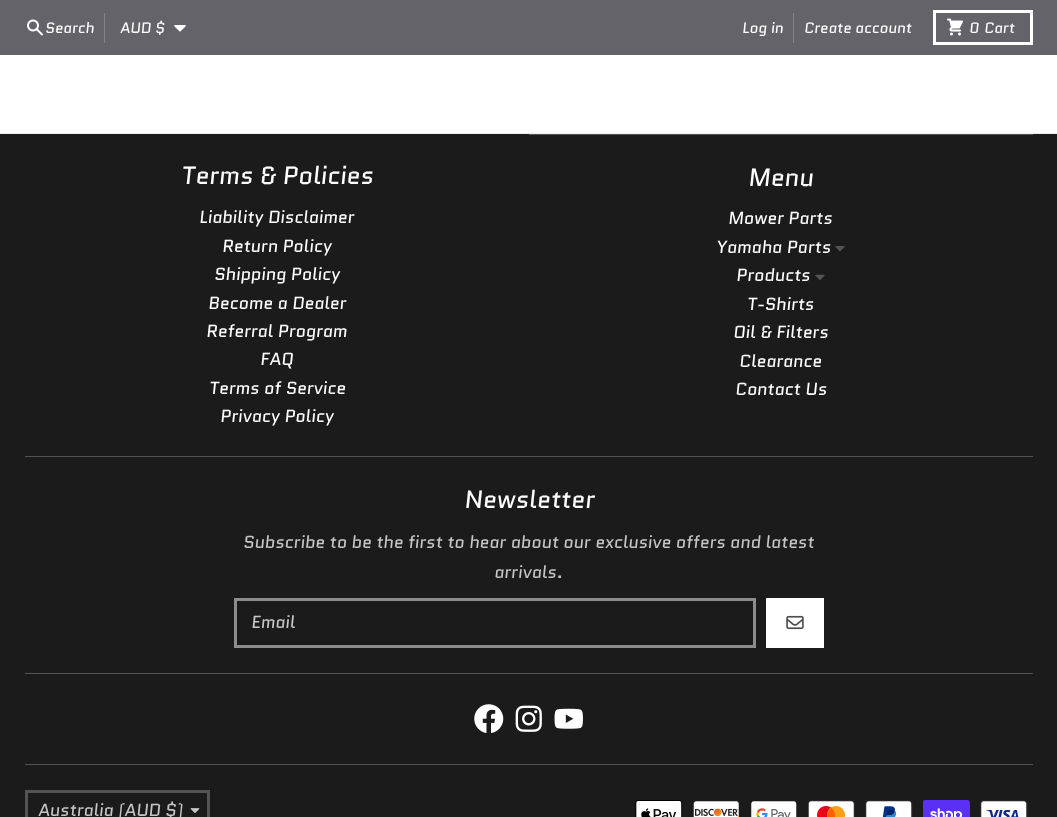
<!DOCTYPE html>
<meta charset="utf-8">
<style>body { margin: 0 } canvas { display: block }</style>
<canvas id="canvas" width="1057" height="817"></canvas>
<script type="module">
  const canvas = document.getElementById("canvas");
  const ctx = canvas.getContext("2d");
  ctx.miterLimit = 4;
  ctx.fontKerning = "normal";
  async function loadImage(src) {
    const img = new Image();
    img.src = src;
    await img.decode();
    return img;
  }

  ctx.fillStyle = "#1b1b1b";
  ctx.fillRect(0, 0, 1057, 817);
  ctx.fillStyle = "#65636a";
  ctx.fillRect(0, 0, 1057, 55);
  ctx.drawImage(await loadImage("img1.png"), 27, 19, 16, 17);
  ctx.font = "italic 15px Quantico";
  ctx.fillStyle = "#ffffff";
  ctx.fillText("Search", 45, 33);
  ctx.fillStyle = "#848288";
  ctx.fillRect(104, 13, 1, 30);
  ctx.fillStyle = "#ffffff";
  ctx.fillText("AUD $", 120, 33);
  ctx.drawImage(await loadImage("img2.png"), 174, 25, 12, 7);
  ctx.fillText("Log in", 742, 33);
  ctx.fillStyle = "#848288";
  ctx.fillRect(793, 13, 1, 30);
  ctx.fillStyle = "#ffffff";
  ctx.fillText("Create account", 804, 33);
  ctx.strokeStyle = "#ffffff";
  ctx.lineWidth = 3;
  ctx.strokeRect(934.5, 11.5, 97, 32);
  ctx.drawImage(await loadImage("img3.png"), 947, 18, 16, 18);
  ctx.fillText("0", 969, 33);
  ctx.fillText("Cart", 984, 33);
  ctx.fillRect(0, 55, 1057, 78);
  ctx.fillStyle = "#ededed";
  ctx.fillRect(0, 133, 1057, 1);
  ctx.font = "italic 25px Quantico";
  ctx.fillStyle = "#ffffff";
  ctx.fillText("Terms & Policies", 181, 184);
  ctx.font = "italic 17.5px Quantico";
  ctx.fillText("Liability Disclaimer", 199, 223);
  ctx.fillText("Return Policy", 222, 252);
  ctx.fillText("Shipping Policy", 214, 280);
  ctx.fillText("Become a Dealer", 208, 309);
  ctx.fillText("Referral Program", 206, 337);
  ctx.fillText("FAQ", 260, 365);
  ctx.fillText("Terms of Service", 209, 394);
  ctx.fillText("Privacy Policy", 220, 422);
  ctx.fillStyle = "#545454";
  ctx.fillRect(529, 134, 504, 1);
  ctx.font = "italic 25px Quantico";
  ctx.fillStyle = "#ffffff";
  ctx.fillText("Menu", 748, 186);
  ctx.font = "italic 17.5px Quantico";
  ctx.fillText("Mower Parts", 728, 224);
  ctx.fillText("Yamaha Parts", 716, 253);
  ctx.drawImage(await loadImage("img4.png"), 835, 246, 10, 5);
  ctx.fillText("Products", 736, 281);
  ctx.drawImage(await loadImage("img5.png"), 815, 274, 10, 6);
  ctx.fillText("T-Shirts", 747, 310);
  ctx.fillText("Oil & Filters", 733, 338);
  ctx.fillText("Clearance", 739, 367);
  ctx.fillText("Contact Us", 735, 395);
  ctx.fillStyle = "#545454";
  ctx.fillRect(25, 456, 1008, 1);
  ctx.font = "italic 25px Quantico";
  ctx.fillStyle = "#ffffff";
  ctx.fillText("Newsletter", 464, 508);
  ctx.font = "italic 17.5px Quantico";
  ctx.fillStyle = "#c6c6c6";
  ctx.fillText("Subscribe to be the first to hear about our exclusive offers and latest", 243, 548);
  ctx.fillText("arrivals.", 494, 578);
  ctx.strokeStyle = "#8d8d8d";
  ctx.strokeRect(235.5, 599.5, 519, 47);
  ctx.fillText("Email", 251, 628);
  ctx.fillStyle = "#ffffff";
  ctx.fillRect(766, 598, 58, 50);
  ctx.drawImage(await loadImage("img6.png"), 786, 615, 18, 15);
  ctx.fillStyle = "#545454";
  ctx.fillRect(25, 673, 1008, 1);
  ctx.drawImage(await loadImage("img7.png"), 474, 704, 30, 29);
  ctx.drawImage(await loadImage("img8.png"), 515, 705, 27, 27);
  ctx.drawImage(await loadImage("img9.png"), 554, 708, 29, 21);
  ctx.fillRect(25, 764, 1008, 1);
  ctx.strokeStyle = "#545454";
  ctx.strokeRect(26.5, 791.5, 182, 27);
  ctx.fillStyle = "#c6c6c6";
  ctx.fillText("Australia (AUD $)", 38, 816);
  ctx.drawImage(await loadImage("img10.png"), 190, 808, 10, 5);
  ctx.drawImage(await loadImage("img11.png"), 635, 800, 48, 17);
  ctx.drawImage(await loadImage("img12.png"), 693, 801, 46, 16);
  ctx.drawImage(await loadImage("img13.png"), 751, 801, 46, 16);
  ctx.drawImage(await loadImage("img14.png"), 808, 800, 47, 17);
  ctx.drawImage(await loadImage("img15.png"), 865, 800, 48, 17);
  ctx.drawImage(await loadImage("img16.png"), 923, 800, 47, 17);
  ctx.drawImage(await loadImage("img17.png"), 980, 800, 48, 17);
</script>
